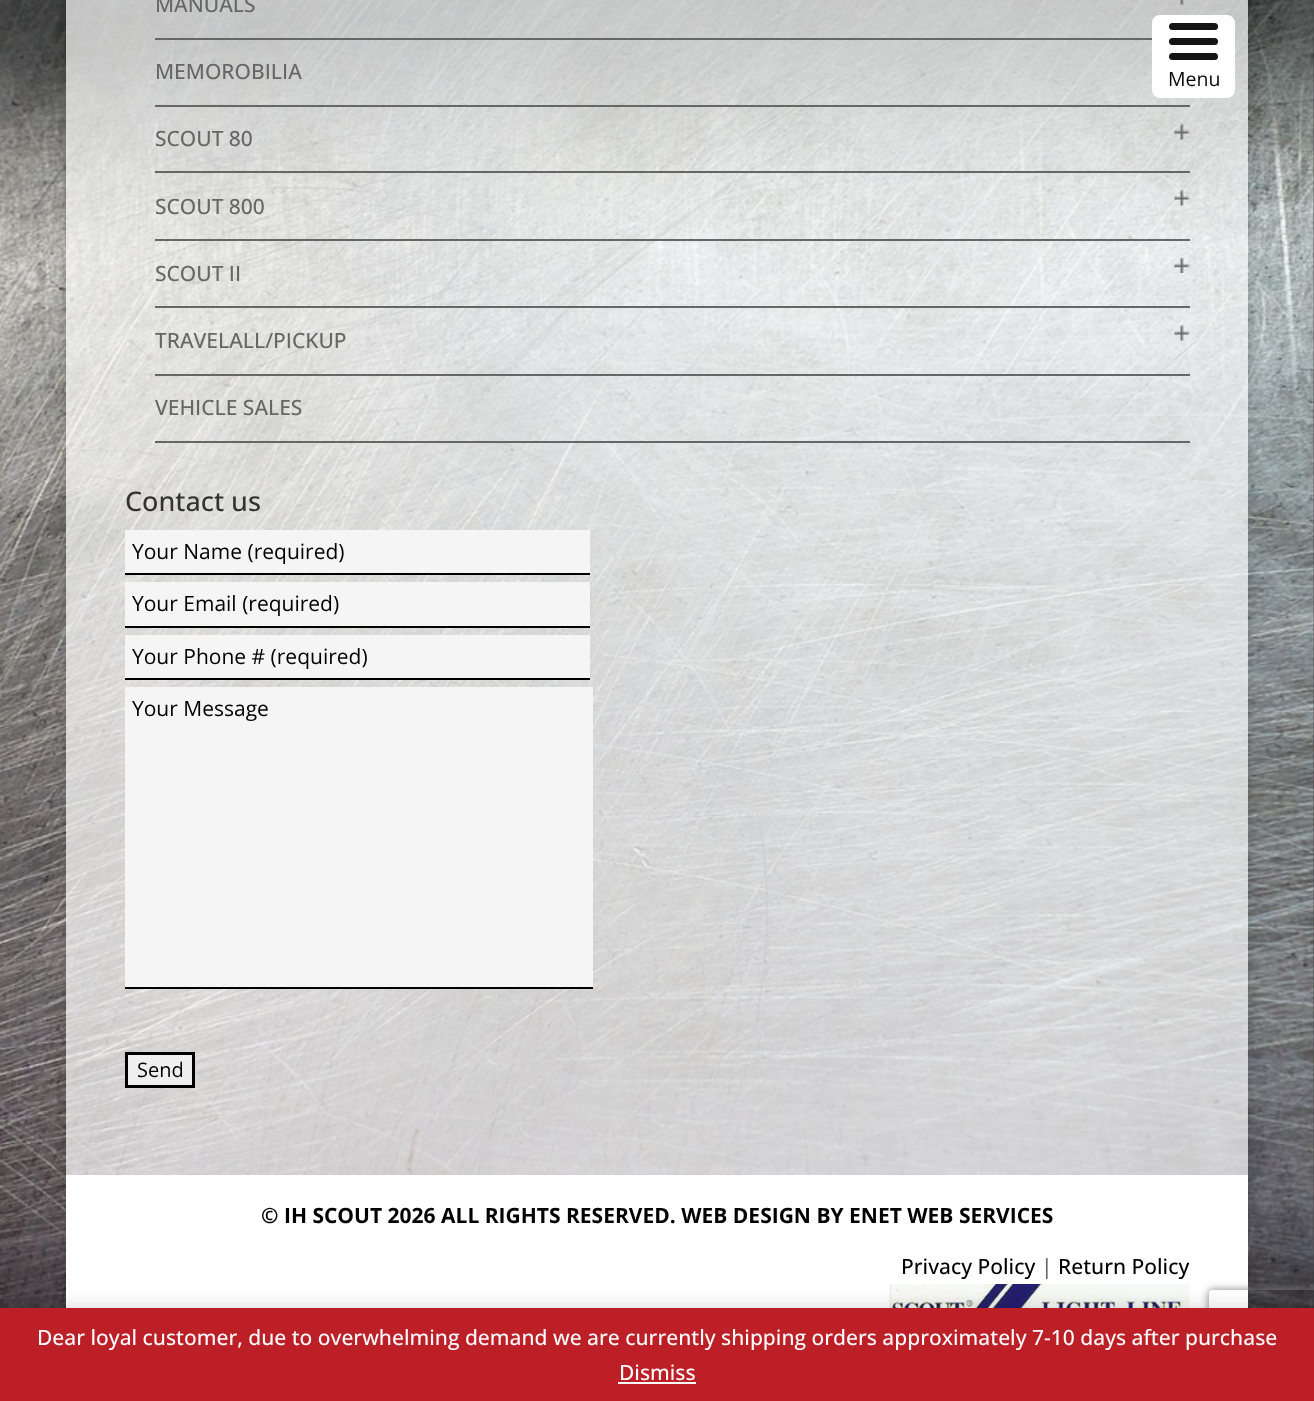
<!DOCTYPE html>
<meta charset="utf-8">
<style>body { margin: 0 } canvas { display: block }</style>
<canvas id="canvas" width="1314" height="1401"></canvas>
<script type="module">
  const canvas = document.getElementById("canvas");
  const ctx = canvas.getContext("2d");
  ctx.miterLimit = 4;
  ctx.fontKerning = "normal";
  async function loadImage(src) {
    const img = new Image();
    img.src = src;
    await img.decode();
    return img;
  }

  ctx.fillStyle = "#3d3d3d";
  ctx.fillRect(0, 0, 1314, 1401);
  ctx.drawImage(await loadImage("img1.png"), 0, 0, 1314, 1308);
  ctx.save();
  ctx.beginPath();
  ctx.moveTo(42, 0);
  ctx.lineTo(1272, 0);
  ctx.lineTo(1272, 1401);
  ctx.lineTo(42, 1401);
  ctx.closePath();
  ctx.moveTo(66, -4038);
  ctx.lineTo(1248, -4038);
  ctx.lineTo(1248, 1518);
  ctx.lineTo(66, 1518);
  ctx.closePath();
  ctx.clip("evenodd");
  ctx.fillStyle = "rgba(0, 0, 0, 0.2)";
  ctx.filter = "blur(7.5px)";
  ctx.beginPath();
  ctx.rect(66, -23, 1182, 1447);
  ctx.fill();
  ctx.filter = "none";
  ctx.restore();
  ctx.fillStyle = "rgba(255, 255, 255, 0.7)";
  ctx.fillRect(66, 0, 1182, 1175);
  ctx.fillStyle = "#666666";
  ctx.fillRect(155, 38, 997, 2);
  ctx.font = "500 21px Open Sans";
  ctx.fillText("MANUALS", 155, 12);
  ctx.drawImage(await loadImage("img2.png"), 1180, 0, 4, 5);
  ctx.fillRect(155, 105, 1035, 2);
  ctx.fillText("MEMOROBILIA", 155, 79);
  ctx.fillRect(155, 171, 1035, 2);
  ctx.fillText("SCOUT 80", 155, 146);
  ctx.drawImage(await loadImage("img3.png"), 1174, 124, 16, 16);
  ctx.fillRect(155, 239, 1035, 2);
  ctx.fillText("SCOUT 800", 155, 214);
  ctx.drawImage(await loadImage("img4.png"), 1174, 190, 16, 16);
  ctx.fillRect(155, 306, 1035, 2);
  ctx.fillText("SCOUT II", 155, 281);
  ctx.drawImage(await loadImage("img5.png"), 1174, 258, 16, 15);
  ctx.fillRect(155, 374, 1035, 2);
  ctx.fillText("TRAVELALL/PICKUP", 155, 348);
  ctx.drawImage(await loadImage("img6.png"), 1174, 325, 16, 16);
  ctx.fillRect(155, 441, 1035, 2);
  ctx.fillText("VEHICLE SALES", 155, 415);
  ctx.font = "500 27px Open Sans";
  ctx.fillStyle = "#333333";
  ctx.fillText("Contact us", 125, 511);
  ctx.fillStyle = "#f5f5f5";
  ctx.fillRect(125, 530, 465, 43);
  ctx.fillStyle = "#000000";
  ctx.fillRect(125, 573, 465, 2);
  ctx.font = "21px Open Sans";
  ctx.fillText("Your Name (required)", 132, 559);
  ctx.fillStyle = "#f5f5f5";
  ctx.fillRect(125, 582, 465, 44);
  ctx.fillStyle = "#000000";
  ctx.fillRect(125, 626, 465, 2);
  ctx.fillText("Your Email (required)", 132, 611);
  ctx.fillStyle = "#f5f5f5";
  ctx.fillRect(125, 635, 465, 43);
  ctx.fillStyle = "#000000";
  ctx.fillRect(125, 678, 465, 2);
  ctx.fillText("Your Phone # (required)", 132, 664);
  ctx.fillStyle = "#f5f5f5";
  ctx.fillRect(125, 687, 468, 300);
  ctx.fillStyle = "#000000";
  ctx.fillRect(125, 987, 468, 2);
  ctx.fillText("Your Message", 132, 716);
  ctx.fillStyle = "#efefef";
  ctx.beginPath();
  ctx.rect(126.5, 1053.5, 67, 33);
  ctx.fill();
  ctx.strokeStyle = "#000000";
  ctx.lineWidth = 3;
  ctx.stroke();
  ctx.font = "20px Open Sans";
  ctx.fillStyle = "#000000";
  ctx.fillText("Send", 137, 1077);
  ctx.fillStyle = "#ffffff";
  ctx.fillRect(66, 1175, 1182, 133);
  ctx.font = "bold 21px Open Sans";
  ctx.fillStyle = "#000000";
  ctx.fillText("© IH SCOUT 2026 ALL RIGHTS RESERVED. WEB DESIGN BY ENET WEB SERVICES", 261, 1223);
  ctx.font = "500 21px Open Sans";
  ctx.fillText("Privacy Policy", 901, 1274);
  ctx.fillStyle = "#666666";
  ctx.fillText("|", 1041, 1274);
  ctx.fillStyle = "#000000";
  ctx.fillText("Return Policy", 1058, 1274);
  ctx.drawImage(await loadImage("img7.png"), 889, 1284, 301, 24);
  ctx.fillStyle = "#ffffff";
  ctx.beginPath();
  ctx.roundRect(1152, 15, 83, 83, 8);
  ctx.fill();
  ctx.fillStyle = "#141414";
  ctx.beginPath();
  ctx.roundRect(1169, 38, 49, 7, 3.5);
  ctx.fill();
  ctx.beginPath();
  ctx.roundRect(1169, 23, 49, 7, 3.5);
  ctx.fill();
  ctx.beginPath();
  ctx.roundRect(1169, 53, 49, 7, 3.5);
  ctx.fill();
  ctx.font = "19.5px Open Sans";
  ctx.fillStyle = "#0a0a0a";
  ctx.fillText("Menu", 1168, 86);
  ctx.save();
  ctx.beginPath();
  ctx.moveTo(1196, 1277);
  ctx.lineTo(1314, 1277);
  ctx.lineTo(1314, 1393);
  ctx.lineTo(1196, 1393);
  ctx.closePath();
  ctx.moveTo(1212, 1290);
  ctx.lineTo(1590, 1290);
  ctx.bezierCurveTo(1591.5, 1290, 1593, 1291.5, 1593, 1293);
  ctx.lineTo(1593, 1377);
  ctx.bezierCurveTo(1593, 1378.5, 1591.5, 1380, 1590, 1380);
  ctx.lineTo(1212, 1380);
  ctx.bezierCurveTo(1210.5, 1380, 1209, 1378.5, 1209, 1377);
  ctx.lineTo(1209, 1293);
  ctx.bezierCurveTo(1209, 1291.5, 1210.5, 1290, 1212, 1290);
  ctx.closePath();
  ctx.clip("evenodd");
  ctx.fillStyle = "#808080";
  ctx.filter = "blur(4px)";
  ctx.beginPath();
  ctx.roundRect(1209, 1290, 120, 90, 3);
  ctx.fill();
  ctx.filter = "none";
  ctx.restore();
  ctx.fillStyle = "rgba(0, 0, 0, 0.2)";
  ctx.filter = "blur(10.5px)";
  ctx.beginPath();
  ctx.rect(0, 1310, 1314, 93);
  ctx.fill();
  ctx.filter = "none";
  ctx.fillStyle = "#bc2026";
  ctx.fillRect(0, 1308, 1314, 93);
  ctx.font = "500 21px Open Sans";
  ctx.fillStyle = "#fcfbfe";
  ctx.fillText("Dear loyal customer, due to overwhelming demand we are currently shipping orders approximately 7-10 days after purchase", 37, 1345);
  ctx.fillText("Dismiss", 619, 1380);
  ctx.fillRect(618, 1382, 78, 2);
</script>
